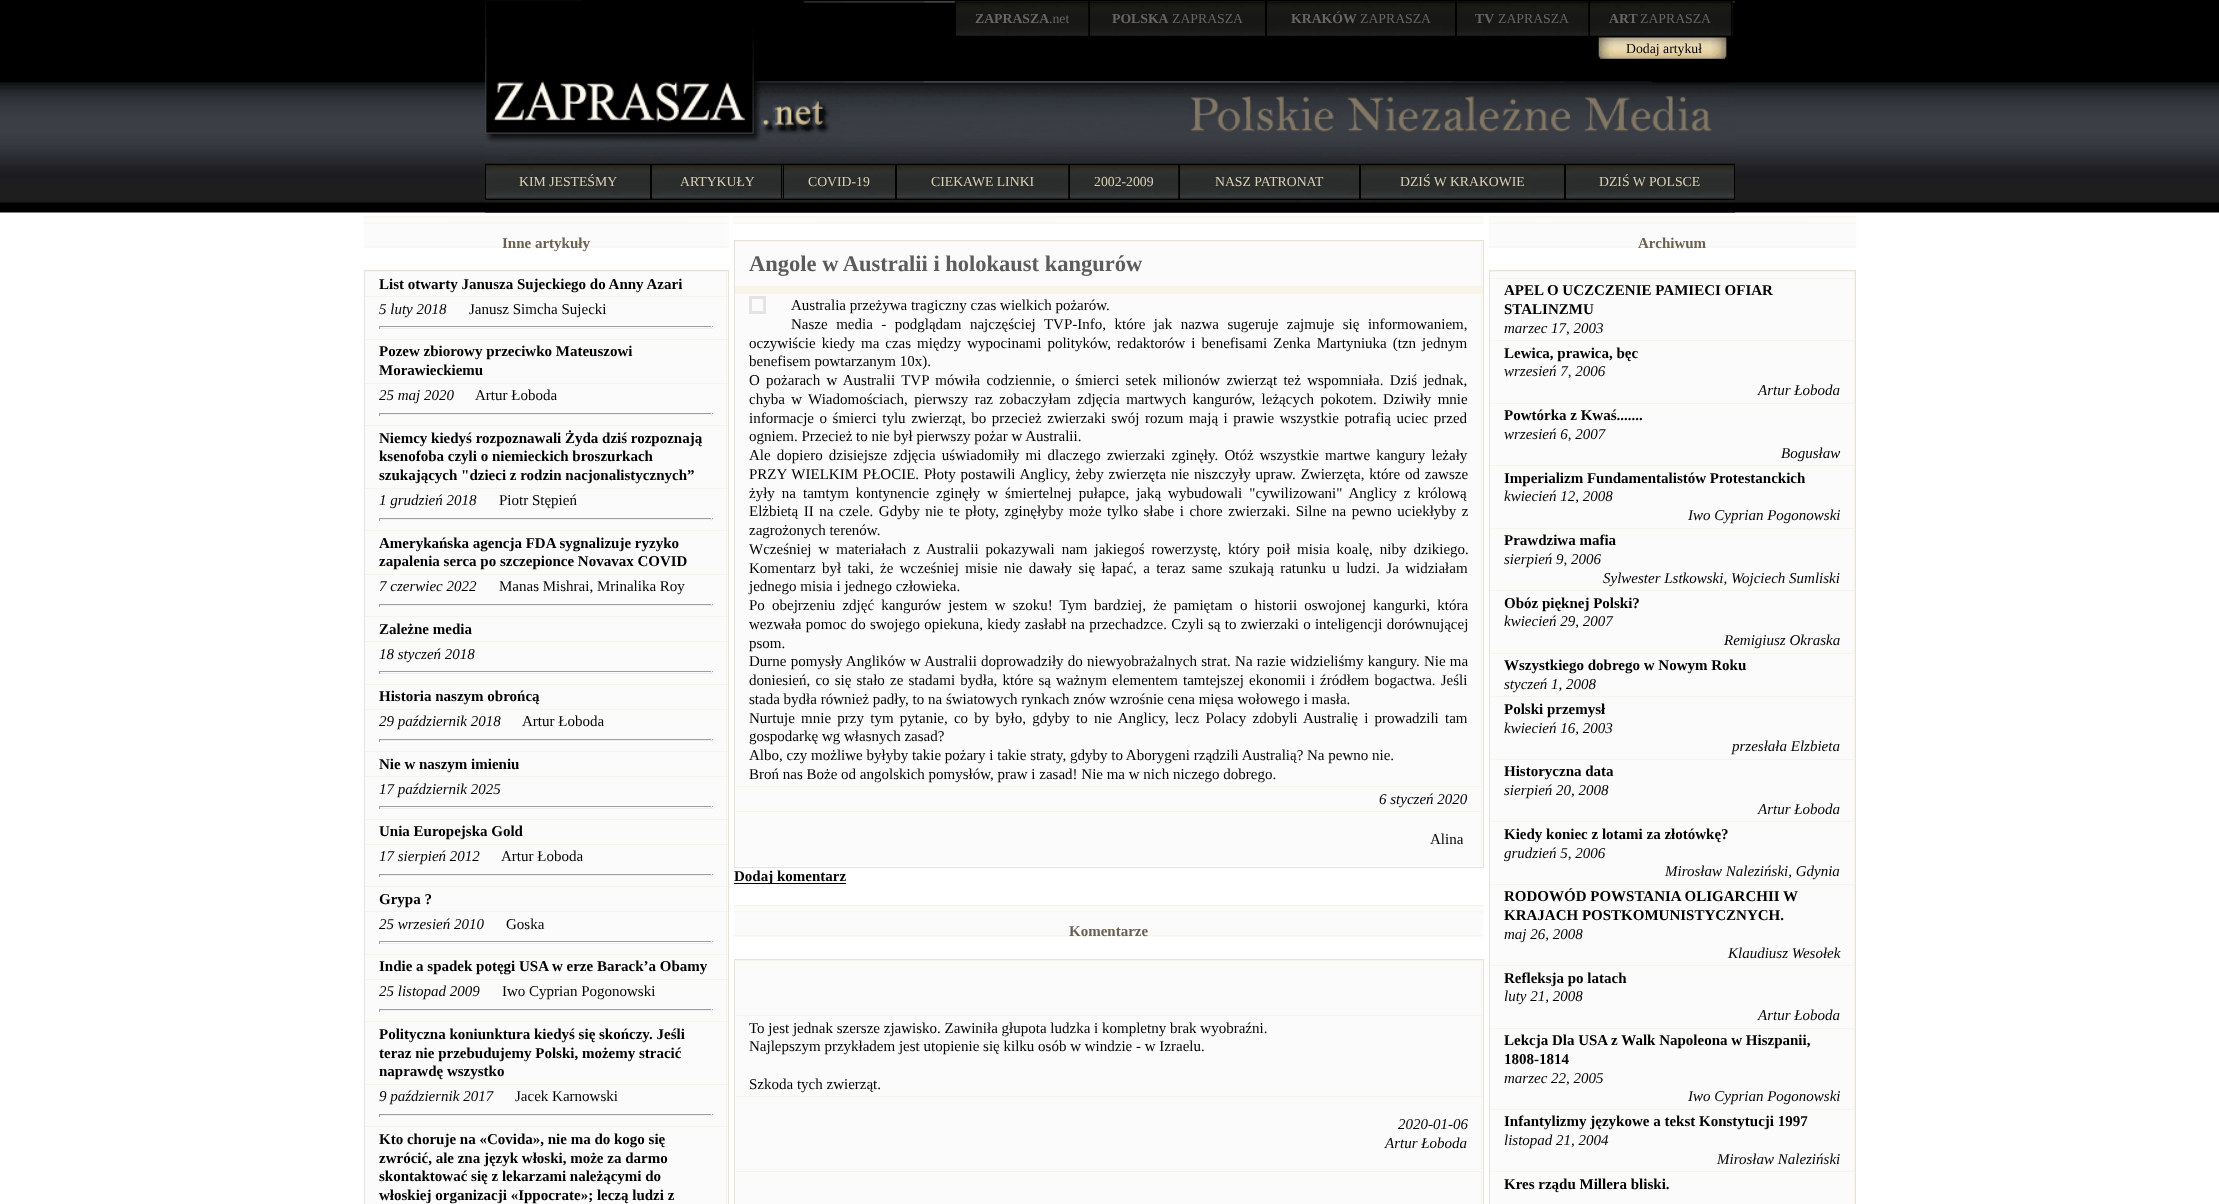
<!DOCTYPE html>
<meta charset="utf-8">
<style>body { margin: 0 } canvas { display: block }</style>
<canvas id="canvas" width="2219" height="1204"></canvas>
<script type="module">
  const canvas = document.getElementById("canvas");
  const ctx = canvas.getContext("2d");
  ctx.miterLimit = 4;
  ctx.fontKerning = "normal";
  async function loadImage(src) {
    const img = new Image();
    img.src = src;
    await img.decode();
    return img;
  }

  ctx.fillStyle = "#ffffff";
  ctx.fillRect(0, 0, 2219, 1204);
  ctx.drawImage(await loadImage("img1.png"), 0, 0, 2219, 213);
  ctx.drawImage(await loadImage("img2.png"), 485, 0, 1250, 213);
  ctx.drawImage(await loadImage("img3.png"), 485, 4, 275, 137);
  ctx.drawImage(await loadImage("img4.png"), 956, 1, 132, 35);
  ctx.fillStyle = "#000000";
  ctx.fillRect(1088, 1, 1, 2);
  ctx.fillRect(955, 1, 1, 2);
  ctx.font = "bold 13.75px Liberation Serif";
  ctx.fillStyle = "#676561";
  ctx.fillText("ZAPRASZA", 975, 23);
  ctx.font = "13.75px Liberation Serif";
  ctx.fillText(".net", 1049, 23);
  ctx.drawImage(await loadImage("img5.png"), 1088, 1, 177, 36);
  ctx.fillStyle = "#000000";
  ctx.fillRect(1265, 1, 2, 2);
  ctx.fillRect(1089, 36, 177, 1);
  ctx.fillRect(1089, 1, 1, 37);
  ctx.font = "bold 13.75px Liberation Serif";
  ctx.fillStyle = "#676561";
  ctx.fillText("POLSKA", 1112, 23);
  ctx.font = "13.75px Liberation Serif";
  ctx.fillText("ZAPRASZA", 1172, 23);
  ctx.drawImage(await loadImage("img6.png"), 1267, 1, 188, 35);
  ctx.fillStyle = "#000000";
  ctx.fillRect(1455, 1, 2, 2);
  ctx.font = "bold 13.75px Liberation Serif";
  ctx.fillStyle = "#676561";
  ctx.fillText("KRAKÓW", 1291, 23);
  ctx.font = "13.75px Liberation Serif";
  ctx.fillText("ZAPRASZA", 1360, 23);
  ctx.drawImage(await loadImage("img7.png"), 1457, 1, 131, 35);
  ctx.fillStyle = "#000000";
  ctx.fillRect(1588, 1, 1, 2);
  ctx.font = "bold 13.75px Liberation Serif";
  ctx.fillStyle = "#676561";
  ctx.fillText("TV", 1475, 23);
  ctx.font = "13.75px Liberation Serif";
  ctx.fillText("ZAPRASZA", 1498, 23);
  ctx.drawImage(await loadImage("img8.png"), 1588, 1, 145, 36);
  ctx.fillStyle = "#000000";
  ctx.fillRect(1731, 1, 1, 37);
  ctx.fillRect(1589, 36, 144, 1);
  ctx.fillRect(1589, 1, 1, 37);
  ctx.font = "bold 13.75px Liberation Serif";
  ctx.fillStyle = "#676561";
  ctx.fillText("ART", 1609, 23);
  ctx.font = "13.75px Liberation Serif";
  ctx.fillText("ZAPRASZA", 1640, 23);
  ctx.drawImage(await loadImage("img9.png"), 1598, 37, 129, 22);
  ctx.fillStyle = "#000000";
  ctx.fillText("Dodaj artykuł", 1626, 53);
  ctx.drawImage(await loadImage("img10.png"), 760, 98, 80, 44);
  ctx.drawImage(await loadImage("img11.png"), 1190, 96, 530, 36);
  ctx.drawImage(await loadImage("img12.png"), 485, 163, 167, 36);
  ctx.fillRect(650, 164, 1, 36);
  ctx.fillRect(485, 199, 166, 1);
  ctx.fillRect(485, 164, 1, 36);
  ctx.fillStyle = "#d8d0b6";
  ctx.fillText("KIM JESTEŚMY", 519, 186);
  ctx.drawImage(await loadImage("img13.png"), 651, 163, 132, 36);
  ctx.fillStyle = "#000000";
  ctx.fillRect(781, 164, 1, 36);
  ctx.fillRect(651, 199, 132, 1);
  ctx.fillRect(651, 164, 1, 36);
  ctx.fillStyle = "#d8d0b6";
  ctx.fillText("ARTYKUŁY", 680, 186);
  ctx.drawImage(await loadImage("img14.png"), 782, 163, 115, 37);
  ctx.fillStyle = "#000000";
  ctx.fillRect(895, 164, 1, 36);
  ctx.fillRect(783, 199, 113, 1);
  ctx.fillRect(783, 164, 1, 36);
  ctx.fillStyle = "#d8d0b6";
  ctx.fillText("COVID-19", 808, 186);
  ctx.drawImage(await loadImage("img15.png"), 896, 163, 173, 36);
  ctx.fillStyle = "#000000";
  ctx.fillRect(1068, 164, 1, 36);
  ctx.fillRect(896, 199, 173, 1);
  ctx.fillRect(896, 164, 1, 36);
  ctx.fillStyle = "#d8d0b6";
  ctx.fillText("CIEKAWE LINKI", 931, 186);
  ctx.drawImage(await loadImage("img16.png"), 1068, 163, 111, 37);
  ctx.fillStyle = "#000000";
  ctx.fillRect(1178, 164, 1, 36);
  ctx.fillRect(1069, 199, 110, 1);
  ctx.fillRect(1069, 164, 1, 36);
  ctx.fillStyle = "#d8d0b6";
  ctx.fillText("2002-2009", 1094, 186);
  ctx.drawImage(await loadImage("img17.png"), 1178, 163, 182, 37);
  ctx.fillStyle = "#000000";
  ctx.fillRect(1359, 164, 1, 36);
  ctx.fillRect(1179, 199, 181, 1);
  ctx.fillRect(1179, 164, 1, 36);
  ctx.fillStyle = "#d8d0b6";
  ctx.fillText("NASZ PATRONAT", 1215, 186);
  ctx.drawImage(await loadImage("img18.png"), 1360, 163, 205, 36);
  ctx.fillStyle = "#000000";
  ctx.fillRect(1564, 164, 1, 36);
  ctx.fillRect(1360, 199, 205, 1);
  ctx.fillRect(1360, 164, 1, 36);
  ctx.fillStyle = "#d8d0b6";
  ctx.fillText("DZIŚ W KRAKOWIE", 1400, 186);
  ctx.drawImage(await loadImage("img19.png"), 1565, 163, 170, 36);
  ctx.fillStyle = "#000000";
  ctx.fillRect(1734, 164, 1, 36);
  ctx.fillRect(1565, 199, 170, 1);
  ctx.fillRect(1565, 164, 1, 36);
  ctx.fillStyle = "#d8d0b6";
  ctx.fillText("DZIŚ W POLSCE", 1599, 186);
  ctx.drawImage(await loadImage("img20.png"), 363, 216, 2, 32);
  ctx.drawImage(await loadImage("img21.png"), 365, 216, 363, 32);
  ctx.font = "bold 15px Liberation Serif";
  ctx.fillStyle = "#6b6153";
  ctx.fillText("Inne artykuły", 502, 248);
  ctx.drawImage(await loadImage("img22.png"), 727, 216, 2, 32);
  ctx.strokeStyle = "#e7e3da";
  ctx.strokeRect(364.5, 270.5, 364, 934);
  ctx.fillStyle = "#fbfbfb";
  ctx.fillRect(365, 272, 363, 24);
  ctx.fillStyle = "#f8f4e9";
  ctx.fillRect(365, 271, 363, 1);
  ctx.fillRect(726, 271, 1, 25);
  ctx.fillStyle = "#000000";
  ctx.fillText("List otwarty Janusza Sujeckiego do Anny Azari", 379, 289);
  ctx.fillStyle = "#fbfbfb";
  ctx.fillRect(365, 297, 363, 42);
  ctx.fillStyle = "#f8f4e9";
  ctx.fillRect(365, 296, 363, 1);
  ctx.fillRect(726, 296, 1, 43);
  ctx.font = "italic 15px Liberation Serif";
  ctx.fillStyle = "#000000";
  ctx.fillText("5 luty 2018", 379, 314);
  ctx.font = "15px Liberation Serif";
  ctx.fillText("Janusz Simcha Sujecki", 469, 314);
  ctx.fillStyle = "#9f9f9f";
  ctx.fillRect(379, 326, 334, 1);
  ctx.fillStyle = "#eeeeee";
  ctx.fillRect(711, 326, 1, 3);
  ctx.fillRect(379, 328, 334, 1);
  ctx.fillStyle = "#9f9f9f";
  ctx.fillRect(379, 326, 1, 3);
  ctx.fillStyle = "#fbfbfb";
  ctx.fillRect(365, 340, 363, 43);
  ctx.fillStyle = "#f8f4e9";
  ctx.fillRect(365, 339, 363, 1);
  ctx.fillRect(726, 339, 1, 44);
  ctx.font = "bold 15px Liberation Serif";
  ctx.fillStyle = "#000000";
  ctx.fillText("Pozew zbiorowy przeciwko Mateuszowi", 379, 356);
  ctx.fillText("Morawieckiemu", 379, 375);
  ctx.fillStyle = "#fbfbfb";
  ctx.fillRect(365, 384, 363, 41);
  ctx.fillStyle = "#f8f4e9";
  ctx.fillRect(365, 383, 363, 1);
  ctx.fillRect(726, 383, 1, 42);
  ctx.font = "italic 15px Liberation Serif";
  ctx.fillStyle = "#000000";
  ctx.fillText("25 maj 2020", 379, 400);
  ctx.font = "15px Liberation Serif";
  ctx.fillText("Artur Łoboda", 475, 400);
  ctx.fillStyle = "#9f9f9f";
  ctx.fillRect(379, 413, 334, 1);
  ctx.fillStyle = "#eeeeee";
  ctx.fillRect(711, 413, 1, 3);
  ctx.fillRect(379, 414, 334, 1);
  ctx.fillStyle = "#9f9f9f";
  ctx.fillRect(379, 413, 1, 3);
  ctx.fillStyle = "#fbfbfb";
  ctx.fillRect(365, 426, 363, 62);
  ctx.fillStyle = "#f8f4e9";
  ctx.fillRect(365, 425, 363, 1);
  ctx.fillRect(726, 425, 1, 63);
  ctx.font = "bold 15px Liberation Serif";
  ctx.fillStyle = "#000000";
  ctx.fillText("Niemcy kiedyś rozpoznawali Żyda dziś rozpoznają", 379, 443);
  ctx.fillText("ksenofoba czyli o niemieckich broszurkach", 379, 461);
  ctx.fillText("szukających \"dzieci z rodzin nacjonalistycznych”", 379, 480);
  ctx.fillStyle = "#fbfbfb";
  ctx.fillRect(365, 489, 363, 41);
  ctx.fillStyle = "#f8f4e9";
  ctx.fillRect(365, 488, 363, 1);
  ctx.fillRect(726, 488, 1, 42);
  ctx.font = "italic 15px Liberation Serif";
  ctx.fillStyle = "#000000";
  ctx.fillText("1 grudzień 2018", 379, 505);
  ctx.font = "15px Liberation Serif";
  ctx.fillText("Piotr Stępień", 499, 505);
  ctx.fillStyle = "#9f9f9f";
  ctx.fillRect(379, 518, 334, 1);
  ctx.fillStyle = "#eeeeee";
  ctx.fillRect(711, 518, 1, 3);
  ctx.fillRect(379, 519, 334, 1);
  ctx.fillStyle = "#9f9f9f";
  ctx.fillRect(379, 518, 1, 3);
  ctx.fillStyle = "#fbfbfb";
  ctx.fillRect(365, 531, 363, 43);
  ctx.fillStyle = "#f8f4e9";
  ctx.fillRect(365, 530, 363, 1);
  ctx.fillRect(726, 530, 1, 44);
  ctx.font = "bold 15px Liberation Serif";
  ctx.fillStyle = "#000000";
  ctx.fillText("Amerykańska agencja FDA sygnalizuje ryzyko", 379, 548);
  ctx.fillText("zapalenia serca po szczepionce Novavax COVID", 379, 566);
  ctx.fillStyle = "#fbfbfb";
  ctx.fillRect(365, 575, 363, 41);
  ctx.fillStyle = "#f8f4e9";
  ctx.fillRect(365, 574, 363, 1);
  ctx.fillRect(726, 574, 1, 42);
  ctx.font = "italic 15px Liberation Serif";
  ctx.fillStyle = "#000000";
  ctx.fillText("7 czerwiec 2022", 379, 591);
  ctx.font = "15px Liberation Serif";
  ctx.fillText("Manas Mishrai, Mrinalika Roy", 499, 591);
  ctx.fillStyle = "#9f9f9f";
  ctx.fillRect(379, 604, 334, 1);
  ctx.fillStyle = "#eeeeee";
  ctx.fillRect(711, 604, 1, 3);
  ctx.fillRect(379, 605, 334, 1);
  ctx.fillStyle = "#9f9f9f";
  ctx.fillRect(379, 604, 1, 3);
  ctx.fillStyle = "#fbfbfb";
  ctx.fillRect(365, 617, 363, 24);
  ctx.fillStyle = "#f8f4e9";
  ctx.fillRect(365, 616, 363, 1);
  ctx.fillRect(726, 616, 1, 25);
  ctx.font = "bold 15px Liberation Serif";
  ctx.fillStyle = "#000000";
  ctx.fillText("Zależne media", 379, 634);
  ctx.fillStyle = "#fbfbfb";
  ctx.fillRect(365, 642, 363, 42);
  ctx.fillStyle = "#f8f4e9";
  ctx.fillRect(365, 641, 363, 1);
  ctx.fillRect(726, 641, 1, 43);
  ctx.font = "italic 15px Liberation Serif";
  ctx.fillStyle = "#000000";
  ctx.fillText("18 styczeń 2018", 379, 659);
  ctx.fillStyle = "#9f9f9f";
  ctx.fillRect(379, 671, 334, 1);
  ctx.fillStyle = "#eeeeee";
  ctx.fillRect(711, 671, 1, 3);
  ctx.fillRect(379, 673, 334, 1);
  ctx.fillStyle = "#9f9f9f";
  ctx.fillRect(379, 671, 1, 3);
  ctx.fillStyle = "#fbfbfb";
  ctx.fillRect(365, 685, 363, 24);
  ctx.fillStyle = "#f8f4e9";
  ctx.fillRect(365, 684, 363, 1);
  ctx.fillRect(726, 684, 1, 25);
  ctx.font = "bold 15px Liberation Serif";
  ctx.fillStyle = "#000000";
  ctx.fillText("Historia naszym obrońcą", 379, 701);
  ctx.fillStyle = "#fbfbfb";
  ctx.fillRect(365, 710, 363, 41);
  ctx.fillStyle = "#f8f4e9";
  ctx.fillRect(365, 709, 363, 1);
  ctx.fillRect(726, 709, 1, 42);
  ctx.font = "italic 15px Liberation Serif";
  ctx.fillStyle = "#000000";
  ctx.fillText("29 październik 2018", 379, 726);
  ctx.font = "15px Liberation Serif";
  ctx.fillText("Artur Łoboda", 522, 726);
  ctx.fillStyle = "#9f9f9f";
  ctx.fillRect(379, 739, 334, 1);
  ctx.fillStyle = "#eeeeee";
  ctx.fillRect(711, 739, 1, 3);
  ctx.fillRect(379, 740, 334, 1);
  ctx.fillStyle = "#9f9f9f";
  ctx.fillRect(379, 739, 1, 3);
  ctx.fillStyle = "#fbfbfb";
  ctx.fillRect(365, 752, 363, 24);
  ctx.fillStyle = "#f8f4e9";
  ctx.fillRect(365, 751, 363, 1);
  ctx.fillRect(726, 751, 1, 25);
  ctx.font = "bold 15px Liberation Serif";
  ctx.fillStyle = "#000000";
  ctx.fillText("Nie w naszym imieniu", 379, 769);
  ctx.fillStyle = "#fbfbfb";
  ctx.fillRect(365, 777, 363, 42);
  ctx.fillStyle = "#f8f4e9";
  ctx.fillRect(365, 776, 363, 1);
  ctx.fillRect(726, 776, 1, 43);
  ctx.font = "italic 15px Liberation Serif";
  ctx.fillStyle = "#000000";
  ctx.fillText("17 październik 2025", 379, 794);
  ctx.fillStyle = "#9f9f9f";
  ctx.fillRect(379, 806, 334, 1);
  ctx.fillStyle = "#eeeeee";
  ctx.fillRect(711, 806, 1, 3);
  ctx.fillRect(379, 808, 334, 1);
  ctx.fillStyle = "#9f9f9f";
  ctx.fillRect(379, 806, 1, 3);
  ctx.fillStyle = "#fbfbfb";
  ctx.fillRect(365, 820, 363, 24);
  ctx.fillStyle = "#f8f4e9";
  ctx.fillRect(365, 819, 363, 1);
  ctx.fillRect(726, 819, 1, 25);
  ctx.font = "bold 15px Liberation Serif";
  ctx.fillStyle = "#000000";
  ctx.fillText("Unia Europejska Gold", 379, 836);
  ctx.fillStyle = "#fbfbfb";
  ctx.fillRect(365, 845, 363, 41);
  ctx.fillStyle = "#f8f4e9";
  ctx.fillRect(365, 844, 363, 1);
  ctx.fillRect(726, 844, 1, 42);
  ctx.font = "italic 15px Liberation Serif";
  ctx.fillStyle = "#000000";
  ctx.fillText("17 sierpień 2012", 379, 861);
  ctx.font = "15px Liberation Serif";
  ctx.fillText("Artur Łoboda", 501, 861);
  ctx.fillStyle = "#9f9f9f";
  ctx.fillRect(379, 874, 334, 1);
  ctx.fillStyle = "#eeeeee";
  ctx.fillRect(711, 874, 1, 3);
  ctx.fillRect(379, 875, 334, 1);
  ctx.fillStyle = "#9f9f9f";
  ctx.fillRect(379, 874, 1, 3);
  ctx.fillStyle = "#fbfbfb";
  ctx.fillRect(365, 887, 363, 24);
  ctx.fillStyle = "#f8f4e9";
  ctx.fillRect(365, 886, 363, 1);
  ctx.fillRect(726, 886, 1, 25);
  ctx.font = "bold 15px Liberation Serif";
  ctx.fillStyle = "#000000";
  ctx.fillText("Grypa ?", 379, 904);
  ctx.fillStyle = "#fbfbfb";
  ctx.fillRect(365, 912, 363, 42);
  ctx.fillStyle = "#f8f4e9";
  ctx.fillRect(365, 911, 363, 1);
  ctx.fillRect(726, 911, 1, 43);
  ctx.font = "italic 15px Liberation Serif";
  ctx.fillStyle = "#000000";
  ctx.fillText("25 wrzesień 2010", 379, 929);
  ctx.font = "15px Liberation Serif";
  ctx.fillText("Goska", 506, 929);
  ctx.fillStyle = "#9f9f9f";
  ctx.fillRect(379, 941, 334, 1);
  ctx.fillStyle = "#eeeeee";
  ctx.fillRect(711, 941, 1, 3);
  ctx.fillRect(379, 943, 334, 1);
  ctx.fillStyle = "#9f9f9f";
  ctx.fillRect(379, 941, 1, 3);
  ctx.fillStyle = "#fbfbfb";
  ctx.fillRect(365, 955, 363, 24);
  ctx.fillStyle = "#f8f4e9";
  ctx.fillRect(365, 954, 363, 1);
  ctx.fillRect(726, 954, 1, 25);
  ctx.font = "bold 15px Liberation Serif";
  ctx.fillStyle = "#000000";
  ctx.fillText("Indie a spadek potęgi USA w erze Barack’a Obamy", 379, 971);
  ctx.fillStyle = "#fbfbfb";
  ctx.fillRect(365, 980, 363, 41);
  ctx.fillStyle = "#f8f4e9";
  ctx.fillRect(365, 979, 363, 1);
  ctx.fillRect(726, 979, 1, 42);
  ctx.font = "italic 15px Liberation Serif";
  ctx.fillStyle = "#000000";
  ctx.fillText("25 listopad 2009", 379, 996);
  ctx.font = "15px Liberation Serif";
  ctx.fillText("Iwo Cyprian Pogonowski", 502, 996);
  ctx.fillStyle = "#9f9f9f";
  ctx.fillRect(379, 1009, 334, 1);
  ctx.fillStyle = "#eeeeee";
  ctx.fillRect(711, 1009, 1, 3);
  ctx.fillRect(379, 1010, 334, 1);
  ctx.fillStyle = "#9f9f9f";
  ctx.fillRect(379, 1009, 1, 3);
  ctx.fillStyle = "#fbfbfb";
  ctx.fillRect(365, 1022, 363, 62);
  ctx.fillStyle = "#f8f4e9";
  ctx.fillRect(365, 1021, 363, 1);
  ctx.fillRect(726, 1021, 1, 63);
  ctx.font = "bold 15px Liberation Serif";
  ctx.fillStyle = "#000000";
  ctx.fillText("Polityczna koniunktura kiedyś się skończy. Jeśli", 379, 1039);
  ctx.fillText("teraz nie przebudujemy Polski, możemy stracić", 379, 1058);
  ctx.fillText("naprawdę wszystko", 379, 1076);
  ctx.fillStyle = "#fbfbfb";
  ctx.fillRect(365, 1085, 363, 41);
  ctx.fillStyle = "#f8f4e9";
  ctx.fillRect(365, 1084, 363, 1);
  ctx.fillRect(726, 1084, 1, 42);
  ctx.font = "italic 15px Liberation Serif";
  ctx.fillStyle = "#000000";
  ctx.fillText("9 październik 2017", 379, 1101);
  ctx.font = "15px Liberation Serif";
  ctx.fillText("Jacek Karnowski", 515, 1101);
  ctx.fillStyle = "#9f9f9f";
  ctx.fillRect(379, 1114, 334, 1);
  ctx.fillStyle = "#eeeeee";
  ctx.fillRect(711, 1114, 1, 3);
  ctx.fillRect(379, 1115, 334, 1);
  ctx.fillStyle = "#9f9f9f";
  ctx.fillRect(379, 1114, 1, 3);
  ctx.fillStyle = "#fbfbfb";
  ctx.fillRect(365, 1127, 363, 77);
  ctx.fillStyle = "#f8f4e9";
  ctx.fillRect(365, 1126, 363, 1);
  ctx.fillRect(726, 1126, 1, 78);
  ctx.font = "bold 15px Liberation Serif";
  ctx.fillStyle = "#000000";
  ctx.fillText("Kto choruje na «Covida», nie ma do kogo się", 379, 1144);
  ctx.fillText("zwrócić, ale zna język włoski, może za darmo", 379, 1163);
  ctx.fillText("skontaktować się z lekarzami należącymi do", 379, 1181);
  ctx.fillText("włoskiej organizacji «Ippocrate»; leczą ludzi z", 379, 1200);
  ctx.drawImage(await loadImage("img23.png"), 733, 216, 2, 8);
  ctx.drawImage(await loadImage("img24.png"), 735, 216, 748, 8);
  ctx.drawImage(await loadImage("img25.png"), 1482, 216, 2, 8);
  ctx.strokeRect(734.5, 240.5, 749, 627);
  ctx.fillStyle = "#fbfbfb";
  ctx.fillRect(735, 242, 748, 44);
  ctx.fillStyle = "#f8f4e9";
  ctx.fillRect(735, 241, 748, 1);
  ctx.fillRect(1481, 241, 1, 45);
  ctx.font = "bold 22.5px Liberation Serif";
  ctx.fillStyle = "#5c5c5c";
  ctx.fillText("Angole w Australii i holokaust kangurów", 749, 271);
  ctx.fillStyle = "#f8f4e9";
  ctx.fillRect(735, 286, 748, 8);
  ctx.fillStyle = "#fbfbfb";
  ctx.fillRect(735, 294, 748, 492);
  ctx.fillStyle = "#f8f4e9";
  ctx.fillRect(1481, 293, 1, 493);
  ctx.strokeStyle = "#e4e4e4";
  ctx.lineWidth = 3;
  ctx.strokeRect(750.5, 297.5, 14, 15);
  ctx.font = "15px Liberation Serif";
  ctx.fillStyle = "#000000";
  ctx.fillText("Australia przeżywa tragiczny czas wielkich pożarów.", 791, 310);
  ctx.wordSpacing = "4.75px";
  ctx.fillText("Nasze media - podglądam najczęściej TVP-Info, które jak nazwa sugeruje zajmuje się informowaniem,", 791, 329);
  ctx.wordSpacing = "2.25px";
  ctx.fillText("oczywiście kiedy ma czas między wypocinami polityków, redaktorów i benefisami Zenka Martyniuka (tzn jednym", 749, 348);
  ctx.wordSpacing = "0px";
  ctx.fillText("benefisem powtarzanym 10x).", 749, 366);
  ctx.wordSpacing = "2.5px";
  ctx.fillText("O pożarach w Australii TVP mówiła codziennie, o śmierci setek milionów zwierząt też wspomniała. Dziś jednak,", 749, 385);
  ctx.wordSpacing = "2.6px";
  ctx.fillText("chyba w Wiadomościach, pierwszy raz zobaczyłam zdjęcia martwych kangurów, leżących pokotem. Dziwiły mnie", 749, 404);
  ctx.wordSpacing = "1.8px";
  ctx.fillText("informacje o śmierci tylu zwierząt, bo przecież zwierzaki swój rozum mają i prawie wszystkie potrafią uciec przed", 749, 423);
  ctx.wordSpacing = "0px";
  ctx.fillText("ogniem. Przecież to nie był pierwszy pożar w Australii.", 749, 441);
  ctx.wordSpacing = "2.4px";
  ctx.fillText("Ale dopiero dzisiejsze zdjęcia uświadomiły mi dlaczego zwierzaki zginęły. Otóż wszystkie martwe kangury leżały", 749, 460);
  ctx.wordSpacing = "1.1px";
  ctx.fillText("PRZY WIELKIM PŁOCIE. Płoty postawili Anglicy, żeby zwierzęta nie niszczyły upraw. Zwierzęta, które od zawsze", 749, 479);
  ctx.wordSpacing = "3.25px";
  ctx.fillText("żyły na tamtym kontynencie zginęły w śmiertelnej pułapce, jaką wybudowali \"cywilizowani\" Anglicy z królową", 749, 498);
  ctx.wordSpacing = "1.75px";
  ctx.fillText("Elżbietą II na czele. Gdyby nie te płoty, zginęłyby może tylko słabe i chore zwierzaki. Silne na pewno uciekłyby z", 749, 516);
  ctx.wordSpacing = "0px";
  ctx.fillText("zagrożonych terenów.", 749, 535);
  ctx.wordSpacing = "3.25px";
  ctx.fillText("Wcześniej w materiałach z Australii pokazywali nam jakiegoś rowerzystę, który poił misia koalę, niby dzikiego.", 749, 554);
  ctx.wordSpacing = "2.6px";
  ctx.fillText("Komentarz był taki, że wcześniej misie nie dawały się łapać, a teraz same szukają ratunku u ludzi. Ja widziałam", 749, 573);
  ctx.wordSpacing = "0px";
  ctx.fillText("jednego misia i jednego człowieka.", 749, 591);
  ctx.wordSpacing = "3.4px";
  ctx.fillText("Po obejrzeniu zdjęć kangurów jestem w szoku! Tym bardziej, że pamiętam o historii oswojonej kangurki, która", 749, 610);
  ctx.wordSpacing = "0.5px";
  ctx.fillText("wezwała pomoc do swojego opiekuna, kiedy zasłabł na przechadzce. Czyli są to zwierzaki o inteligencji dorównującej", 749, 629);
  ctx.wordSpacing = "0px";
  ctx.fillText("psom.", 749, 648);
  ctx.wordSpacing = "0.5px";
  ctx.fillText("Durne pomysły Anglików w Australii doprowadziły do niewyobrażalnych strat. Na razie widzieliśmy kangury. Nie ma", 749, 666);
  ctx.wordSpacing = "1.4px";
  ctx.fillText("doniesień, co się stało ze stadami bydła, które są ważnym elementem tamtejszej ekonomii i źródłem bogactwa. Jeśli", 749, 685);
  ctx.wordSpacing = "0px";
  ctx.fillText("stada bydła również padły, to na światowych rynkach znów wzrośnie cena mięsa wołowego i masła.", 749, 704);
  ctx.wordSpacing = "2.5px";
  ctx.fillText("Nurtuje mnie przy tym pytanie, co by było, gdyby to nie Anglicy, lecz Polacy zdobyli Australię i prowadzili tam", 749, 723);
  ctx.wordSpacing = "0px";
  ctx.fillText("gospodarkę wg własnych zasad?", 749, 741);
  ctx.fillText("Albo, czy możliwe byłyby takie pożary i takie straty, gdyby to Aborygeni rządzili Australią? Na pewno nie.", 749, 760);
  ctx.fillText("Broń nas Boże od angolskich pomysłów, praw i zasad! Nie ma w nich niczego dobrego.", 749, 779);
  ctx.fillStyle = "#fbfbfb";
  ctx.fillRect(735, 787, 748, 24);
  ctx.fillStyle = "#f8f4e9";
  ctx.fillRect(735, 786, 748, 1);
  ctx.fillRect(1481, 786, 1, 25);
  ctx.font = "italic 15px Liberation Serif";
  ctx.fillStyle = "#000000";
  ctx.fillText("6 styczeń 2020", 1379, 804);
  ctx.fillStyle = "#fbfbfb";
  ctx.fillRect(735, 812, 748, 54);
  ctx.fillStyle = "#f8f4e9";
  ctx.fillRect(735, 811, 748, 1);
  ctx.fillRect(1481, 811, 1, 55);
  ctx.font = "15px Liberation Serif";
  ctx.fillStyle = "#000000";
  ctx.fillText("Alina", 1430, 844);
  ctx.fillRect(734, 883, 112, 1);
  ctx.font = "bold 15px Liberation Serif";
  ctx.fillText("Dodaj komentarz", 734, 881);
  ctx.drawImage(await loadImage("img26.png"), 733, 905, 2, 32);
  ctx.drawImage(await loadImage("img27.png"), 735, 905, 748, 32);
  ctx.fillStyle = "#6b6153";
  ctx.fillText("Komentarze", 1069, 936);
  ctx.drawImage(await loadImage("img28.png"), 1482, 905, 2, 32);
  ctx.strokeStyle = "#e7e3da";
  ctx.lineWidth = 1;
  ctx.strokeRect(734.5, 959.5, 749, 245);
  ctx.fillStyle = "#fbfbfb";
  ctx.fillRect(735, 961, 748, 54);
  ctx.fillStyle = "#f8f4e9";
  ctx.fillRect(735, 960, 748, 1);
  ctx.fillRect(1481, 960, 1, 55);
  ctx.fillStyle = "#fbfbfb";
  ctx.fillRect(735, 1016, 748, 80);
  ctx.fillStyle = "#f8f4e9";
  ctx.fillRect(735, 1015, 748, 1);
  ctx.fillRect(1481, 1015, 1, 81);
  ctx.font = "15px Liberation Serif";
  ctx.fillStyle = "#000000";
  ctx.fillText("To jest jednak szersze zjawisko. Zawiniła głupota ludzka i kompletny brak wyobraźni.", 749, 1033);
  ctx.fillText("Najlepszym przykładem jest utopienie się kilku osób w windzie - w Izraelu.", 749, 1051);
  ctx.fillText("Szkoda tych zwierząt.", 749, 1089);
  ctx.fillStyle = "#fbfbfb";
  ctx.fillRect(735, 1097, 748, 73);
  ctx.fillStyle = "#f8f4e9";
  ctx.fillRect(735, 1096, 748, 1);
  ctx.fillRect(1481, 1096, 1, 74);
  ctx.font = "italic 15px Liberation Serif";
  ctx.fillStyle = "#000000";
  ctx.fillText("2020-01-06", 1398, 1129);
  ctx.fillText("Artur Łoboda", 1385, 1148);
  ctx.fillStyle = "#fbfbfb";
  ctx.fillRect(735, 1172, 748, 32);
  ctx.fillStyle = "#f8f4e9";
  ctx.fillRect(735, 1171, 748, 1);
  ctx.fillRect(1481, 1171, 1, 33);
  ctx.drawImage(await loadImage("img29.png"), 1488, 216, 369, 32);
  ctx.font = "bold 15px Liberation Serif";
  ctx.fillStyle = "#6b6153";
  ctx.fillText("Archiwum", 1638, 248);
  ctx.strokeRect(1489.5, 270.5, 366, 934);
  ctx.fillStyle = "#fbfbfb";
  ctx.fillRect(1490, 272, 365, 6);
  ctx.fillStyle = "#f8f4e9";
  ctx.fillRect(1490, 271, 365, 1);
  ctx.fillRect(1854, 271, 1, 7);
  ctx.fillStyle = "#fbfbfb";
  ctx.fillRect(1490, 279, 364, 61);
  ctx.fillStyle = "#f8f4e9";
  ctx.fillRect(1490, 278, 365, 1);
  ctx.fillRect(1854, 278, 1, 62);
  ctx.fillStyle = "#000000";
  ctx.fillText("APEL O UCZCZENIE PAMIECI OFIAR", 1504, 295);
  ctx.fillText("STALINZMU", 1504, 314);
  ctx.font = "italic 15px Liberation Serif";
  ctx.fillText("marzec 17, 2003", 1504, 333);
  ctx.fillStyle = "#fbfbfb";
  ctx.fillRect(1490, 341, 364, 62);
  ctx.fillStyle = "#f8f4e9";
  ctx.fillRect(1490, 340, 365, 1);
  ctx.fillRect(1854, 340, 1, 63);
  ctx.font = "bold 15px Liberation Serif";
  ctx.fillStyle = "#000000";
  ctx.fillText("Lewica, prawica, bęc", 1504, 358);
  ctx.font = "italic 15px Liberation Serif";
  ctx.fillText("wrzesień 7, 2006", 1504, 376);
  ctx.fillText("Artur Łoboda", 1758, 395);
  ctx.fillStyle = "#fbfbfb";
  ctx.fillRect(1490, 404, 364, 61);
  ctx.fillStyle = "#f8f4e9";
  ctx.fillRect(1490, 403, 365, 1);
  ctx.fillRect(1854, 403, 1, 62);
  ctx.font = "bold 15px Liberation Serif";
  ctx.fillStyle = "#000000";
  ctx.fillText("Powtórka z Kwaś.......", 1504, 420);
  ctx.font = "italic 15px Liberation Serif";
  ctx.fillText("wrzesień 6, 2007", 1504, 439);
  ctx.fillText("Bogusław", 1781, 458);
  ctx.fillStyle = "#fbfbfb";
  ctx.fillRect(1490, 466, 364, 62);
  ctx.fillStyle = "#f8f4e9";
  ctx.fillRect(1490, 465, 365, 1);
  ctx.fillRect(1854, 465, 1, 63);
  ctx.font = "bold 15px Liberation Serif";
  ctx.fillStyle = "#000000";
  ctx.fillText("Imperializm Fundamentalistów Protestanckich", 1504, 483);
  ctx.font = "italic 15px Liberation Serif";
  ctx.fillText("kwiecień 12, 2008", 1504, 501);
  ctx.fillText("Iwo Cyprian Pogonowski", 1688, 520);
  ctx.fillStyle = "#fbfbfb";
  ctx.fillRect(1490, 529, 364, 61);
  ctx.fillStyle = "#f8f4e9";
  ctx.fillRect(1490, 528, 365, 1);
  ctx.fillRect(1854, 528, 1, 62);
  ctx.font = "bold 15px Liberation Serif";
  ctx.fillStyle = "#000000";
  ctx.fillText("Prawdziwa mafia", 1504, 545);
  ctx.font = "italic 15px Liberation Serif";
  ctx.fillText("sierpień 9, 2006", 1504, 564);
  ctx.fillText("Sylwester Lstkowski, Wojciech Sumliski", 1603, 583);
  ctx.fillStyle = "#fbfbfb";
  ctx.fillRect(1490, 591, 364, 62);
  ctx.fillStyle = "#f8f4e9";
  ctx.fillRect(1490, 590, 365, 1);
  ctx.fillRect(1854, 590, 1, 63);
  ctx.font = "bold 15px Liberation Serif";
  ctx.fillStyle = "#000000";
  ctx.fillText("Obóz pięknej Polski?", 1504, 608);
  ctx.font = "italic 15px Liberation Serif";
  ctx.fillText("kwiecień 29, 2007", 1504, 626);
  ctx.fillText("Remigiusz Okraska", 1724, 645);
  ctx.fillStyle = "#fbfbfb";
  ctx.fillRect(1490, 654, 364, 42);
  ctx.fillStyle = "#f8f4e9";
  ctx.fillRect(1490, 653, 365, 1);
  ctx.fillRect(1854, 653, 1, 43);
  ctx.font = "bold 15px Liberation Serif";
  ctx.fillStyle = "#000000";
  ctx.fillText("Wszystkiego dobrego w Nowym Roku", 1504, 670);
  ctx.font = "italic 15px Liberation Serif";
  ctx.fillText("styczeń 1, 2008", 1504, 689);
  ctx.fillStyle = "#fbfbfb";
  ctx.fillRect(1490, 697, 364, 62);
  ctx.fillStyle = "#f8f4e9";
  ctx.fillRect(1490, 696, 365, 1);
  ctx.fillRect(1854, 696, 1, 63);
  ctx.font = "bold 15px Liberation Serif";
  ctx.fillStyle = "#000000";
  ctx.fillText("Polski przemysł", 1504, 714);
  ctx.font = "italic 15px Liberation Serif";
  ctx.fillText("kwiecień 16, 2003", 1504, 733);
  ctx.fillText("przesłała Elzbieta", 1732, 751);
  ctx.fillStyle = "#fbfbfb";
  ctx.fillRect(1490, 760, 364, 61);
  ctx.fillStyle = "#f8f4e9";
  ctx.fillRect(1490, 759, 365, 1);
  ctx.fillRect(1854, 759, 1, 62);
  ctx.font = "bold 15px Liberation Serif";
  ctx.fillStyle = "#000000";
  ctx.fillText("Historyczna data", 1504, 776);
  ctx.font = "italic 15px Liberation Serif";
  ctx.fillText("sierpień 20, 2008", 1504, 795);
  ctx.fillText("Artur Łoboda", 1758, 814);
  ctx.fillStyle = "#fbfbfb";
  ctx.fillRect(1490, 822, 364, 62);
  ctx.fillStyle = "#f8f4e9";
  ctx.fillRect(1490, 821, 365, 1);
  ctx.fillRect(1854, 821, 1, 63);
  ctx.font = "bold 15px Liberation Serif";
  ctx.fillStyle = "#000000";
  ctx.fillText("Kiedy koniec z lotami za złotówkę?", 1504, 839);
  ctx.font = "italic 15px Liberation Serif";
  ctx.fillText("grudzień 5, 2006", 1504, 858);
  ctx.fillText("Mirosław Naleziński, Gdynia", 1665, 876);
  ctx.fillStyle = "#fbfbfb";
  ctx.fillRect(1490, 885, 364, 80);
  ctx.fillStyle = "#f8f4e9";
  ctx.fillRect(1490, 884, 365, 1);
  ctx.fillRect(1854, 884, 1, 81);
  ctx.font = "bold 15px Liberation Serif";
  ctx.fillStyle = "#000000";
  ctx.fillText("RODOWÓD POWSTANIA OLIGARCHII W", 1504, 901);
  ctx.fillText("KRAJACH POSTKOMUNISTYCZNYCH.", 1504, 920);
  ctx.font = "italic 15px Liberation Serif";
  ctx.fillText("maj 26, 2008", 1504, 939);
  ctx.fillText("Klaudiusz Wesołek", 1728, 958);
  ctx.fillStyle = "#fbfbfb";
  ctx.fillRect(1490, 966, 364, 62);
  ctx.fillStyle = "#f8f4e9";
  ctx.fillRect(1490, 965, 365, 1);
  ctx.fillRect(1854, 965, 1, 63);
  ctx.font = "bold 15px Liberation Serif";
  ctx.fillStyle = "#000000";
  ctx.fillText("Refleksja po latach", 1504, 983);
  ctx.font = "italic 15px Liberation Serif";
  ctx.fillText("luty 21, 2008", 1504, 1001);
  ctx.fillText("Artur Łoboda", 1758, 1020);
  ctx.fillStyle = "#fbfbfb";
  ctx.fillRect(1490, 1029, 364, 80);
  ctx.fillStyle = "#f8f4e9";
  ctx.fillRect(1490, 1028, 365, 1);
  ctx.fillRect(1854, 1028, 1, 81);
  ctx.font = "bold 15px Liberation Serif";
  ctx.fillStyle = "#000000";
  ctx.fillText("Lekcja Dla USA z Walk Napoleona w Hiszpanii,", 1504, 1045);
  ctx.fillText("1808-1814", 1504, 1064);
  ctx.font = "italic 15px Liberation Serif";
  ctx.fillText("marzec 22, 2005", 1504, 1083);
  ctx.fillText("Iwo Cyprian Pogonowski", 1688, 1101);
  ctx.fillStyle = "#fbfbfb";
  ctx.fillRect(1490, 1110, 364, 61);
  ctx.fillStyle = "#f8f4e9";
  ctx.fillRect(1490, 1109, 365, 1);
  ctx.fillRect(1854, 1109, 1, 62);
  ctx.font = "bold 15px Liberation Serif";
  ctx.fillStyle = "#000000";
  ctx.fillText("Infantylizmy językowe a tekst Konstytucji 1997", 1504, 1126);
  ctx.font = "italic 15px Liberation Serif";
  ctx.fillText("listopad 21, 2004", 1504, 1145);
  ctx.fillText("Mirosław Naleziński", 1717, 1164);
  ctx.fillStyle = "#fbfbfb";
  ctx.fillRect(1490, 1172, 364, 32);
  ctx.fillStyle = "#f8f4e9";
  ctx.fillRect(1490, 1171, 365, 1);
  ctx.fillRect(1854, 1171, 1, 33);
  ctx.font = "bold 15px Liberation Serif";
  ctx.fillStyle = "#000000";
  ctx.fillText("Kres rządu Millera bliski.", 1504, 1189);
</script>
